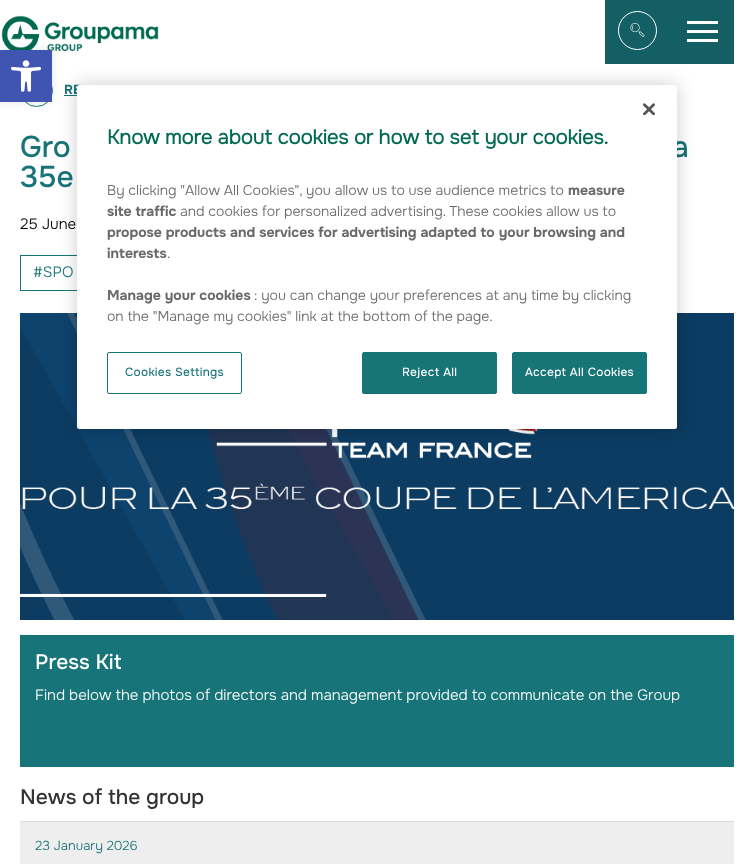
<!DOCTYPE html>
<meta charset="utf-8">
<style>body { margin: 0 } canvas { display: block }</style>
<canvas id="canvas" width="754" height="864"></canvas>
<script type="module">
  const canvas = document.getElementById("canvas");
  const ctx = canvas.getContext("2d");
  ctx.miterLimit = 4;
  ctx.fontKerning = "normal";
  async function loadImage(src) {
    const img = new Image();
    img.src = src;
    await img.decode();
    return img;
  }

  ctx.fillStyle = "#ffffff";
  ctx.fillRect(0, 0, 754, 864);
  ctx.drawImage(await loadImage("img2.png"), 1, 15, 158, 37);
  ctx.beginPath();
  ctx.arc(36.5, 90.5, 16, 0, Math.PI * 2);
  ctx.strokeStyle = "#177478";
  ctx.stroke();
  ctx.fillStyle = "#177478";
  ctx.fillRect(64, 95, 13, 1);
  ctx.fillStyle = "rgba(0, 0, 0, 0.1)";
  ctx.filter = "blur(5px)";
  ctx.beginPath();
  ctx.rect(0, 50, 52, 52);
  ctx.fill();
  ctx.filter = "none";
  ctx.fillStyle = "#4054b2";
  ctx.fillRect(0, 50, 52, 52);
  ctx.drawImage(await loadImage("img1.png"), 11, 60, 30, 32);
  ctx.fillStyle = "#135f63";
  ctx.fillRect(605, 0, 129, 64);
  ctx.beginPath();
  ctx.arc(637.5, 30.5, 19, 0, Math.PI * 2);
  ctx.strokeStyle = "#ffffff";
  ctx.stroke();
  ctx.drawImage(await loadImage("img3.png"), 630, 23, 15, 15);
  ctx.fillStyle = "#ffffff";
  ctx.fillRect(687, 30, 31, 3);
  ctx.fillRect(687, 21, 31, 3);
  ctx.fillRect(687, 39, 31, 3);
  ctx.font = "bold 13px Onest";
  ctx.fillStyle = "#177478";
  ctx.fillText("RE", 64, 94);
  ctx.font = "500 30px Onest";
  ctx.fillText("Gro", 20, 157);
  ctx.fillText("a", 672, 157);
  ctx.fillText("35e", 20, 187);
  ctx.font = "300 15px Onest";
  ctx.fillStyle = "#000000";
  ctx.fillText("25 June", 20, 229);
  ctx.strokeStyle = "#177478";
  ctx.strokeRect(20.5, 255.5, 133, 35);
  ctx.fillStyle = "#177478";
  ctx.fillText("#SPO", 33, 277);
  ctx.drawImage(await loadImage("img4.png"), 20, 313, 714, 307);
  ctx.fillRect(20, 635, 714, 132);
  ctx.font = "500 21px Onest";
  ctx.fillStyle = "#ffffff";
  ctx.fillText("Press Kit", 35, 669);
  ctx.font = "300 15px Onest";
  ctx.fillText("Find below the photos of directors and management provided to communicate on the Group", 35, 700);
  ctx.font = "500 21px Onest";
  ctx.fillStyle = "#333333";
  ctx.fillText("News of the group", 20, 804);
  ctx.fillStyle = "#eeeeee";
  ctx.fillRect(20, 822, 714, 42);
  ctx.fillStyle = "#dbdbdb";
  ctx.fillRect(20, 821, 714, 1);
  ctx.font = "300 13px Onest";
  ctx.fillStyle = "#177478";
  ctx.fillText("23 January 2026", 35, 850);
  ctx.fillStyle = "rgba(0, 0, 0, 0.2)";
  ctx.filter = "blur(9px)";
  ctx.beginPath();
  ctx.roundRect(77, 85, 600, 344, 2.5);
  ctx.fill();
  ctx.filter = "none";
  ctx.fillStyle = "#ffffff";
  ctx.beginPath();
  ctx.roundRect(77, 85, 600, 344, 2.5);
  ctx.fill();
  ctx.drawImage(await loadImage("img5.png"), 643, 103, 12, 12);
  ctx.font = "bold 20px 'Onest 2'";
  ctx.fillStyle = "#006a53";
  ctx.fillText("Know more about cookies or how to set your cookies.", 107, 144);
  ctx.font = "300 14px Onest";
  ctx.fillStyle = "#696969";
  ctx.fillText("By clicking \"Allow All Cookies\", you allow us to use audience metrics to", 107, 195);
  ctx.font = "bold 14px Onest";
  ctx.fillText("measure", 568, 195);
  ctx.fillText("site traffic", 107, 216);
  ctx.font = "300 14px Onest";
  ctx.fillText("and cookies for personalized advertising. These cookies allow us to", 180, 216);
  ctx.font = "bold 14px Onest";
  ctx.fillText("propose products and services for advertising adapted to your browsing and", 107, 237);
  ctx.fillText("interests", 107, 258);
  ctx.font = "300 14px Onest";
  ctx.fillText(".", 167, 258);
  ctx.font = "bold 14px Onest";
  ctx.fillText("Manage your cookies", 107, 300);
  ctx.font = "300 14px Onest";
  ctx.fillText(": you can change your preferences at any time by clicking", 254, 300);
  ctx.fillText("on the \"Manage my cookies\" link at the bottom of the page.", 107, 321);
  ctx.beginPath();
  ctx.roundRect(107.5, 352.5, 134, 41, 1.5);
  ctx.strokeStyle = "#177477";
  ctx.stroke();
  ctx.letterSpacing = "0.6px";
  ctx.font = "bold 11.4px 'Onest 2'";
  ctx.fillStyle = "#177478";
  ctx.fillText("Cookies Settings", 125, 376);
  ctx.fillStyle = "#177477";
  ctx.beginPath();
  ctx.roundRect(362.5, 352.5, 134, 41, 1.5);
  ctx.fill();
  ctx.stroke();
  ctx.fillStyle = "#ffffff";
  ctx.fillText("Reject All", 402, 376);
  ctx.fillStyle = "#177477";
  ctx.beginPath();
  ctx.roundRect(512.5, 352.5, 134, 41, 1.5);
  ctx.fill();
  ctx.stroke();
  ctx.fillStyle = "#ffffff";
  ctx.fillText("Accept All Cookies", 525, 376);
</script>
